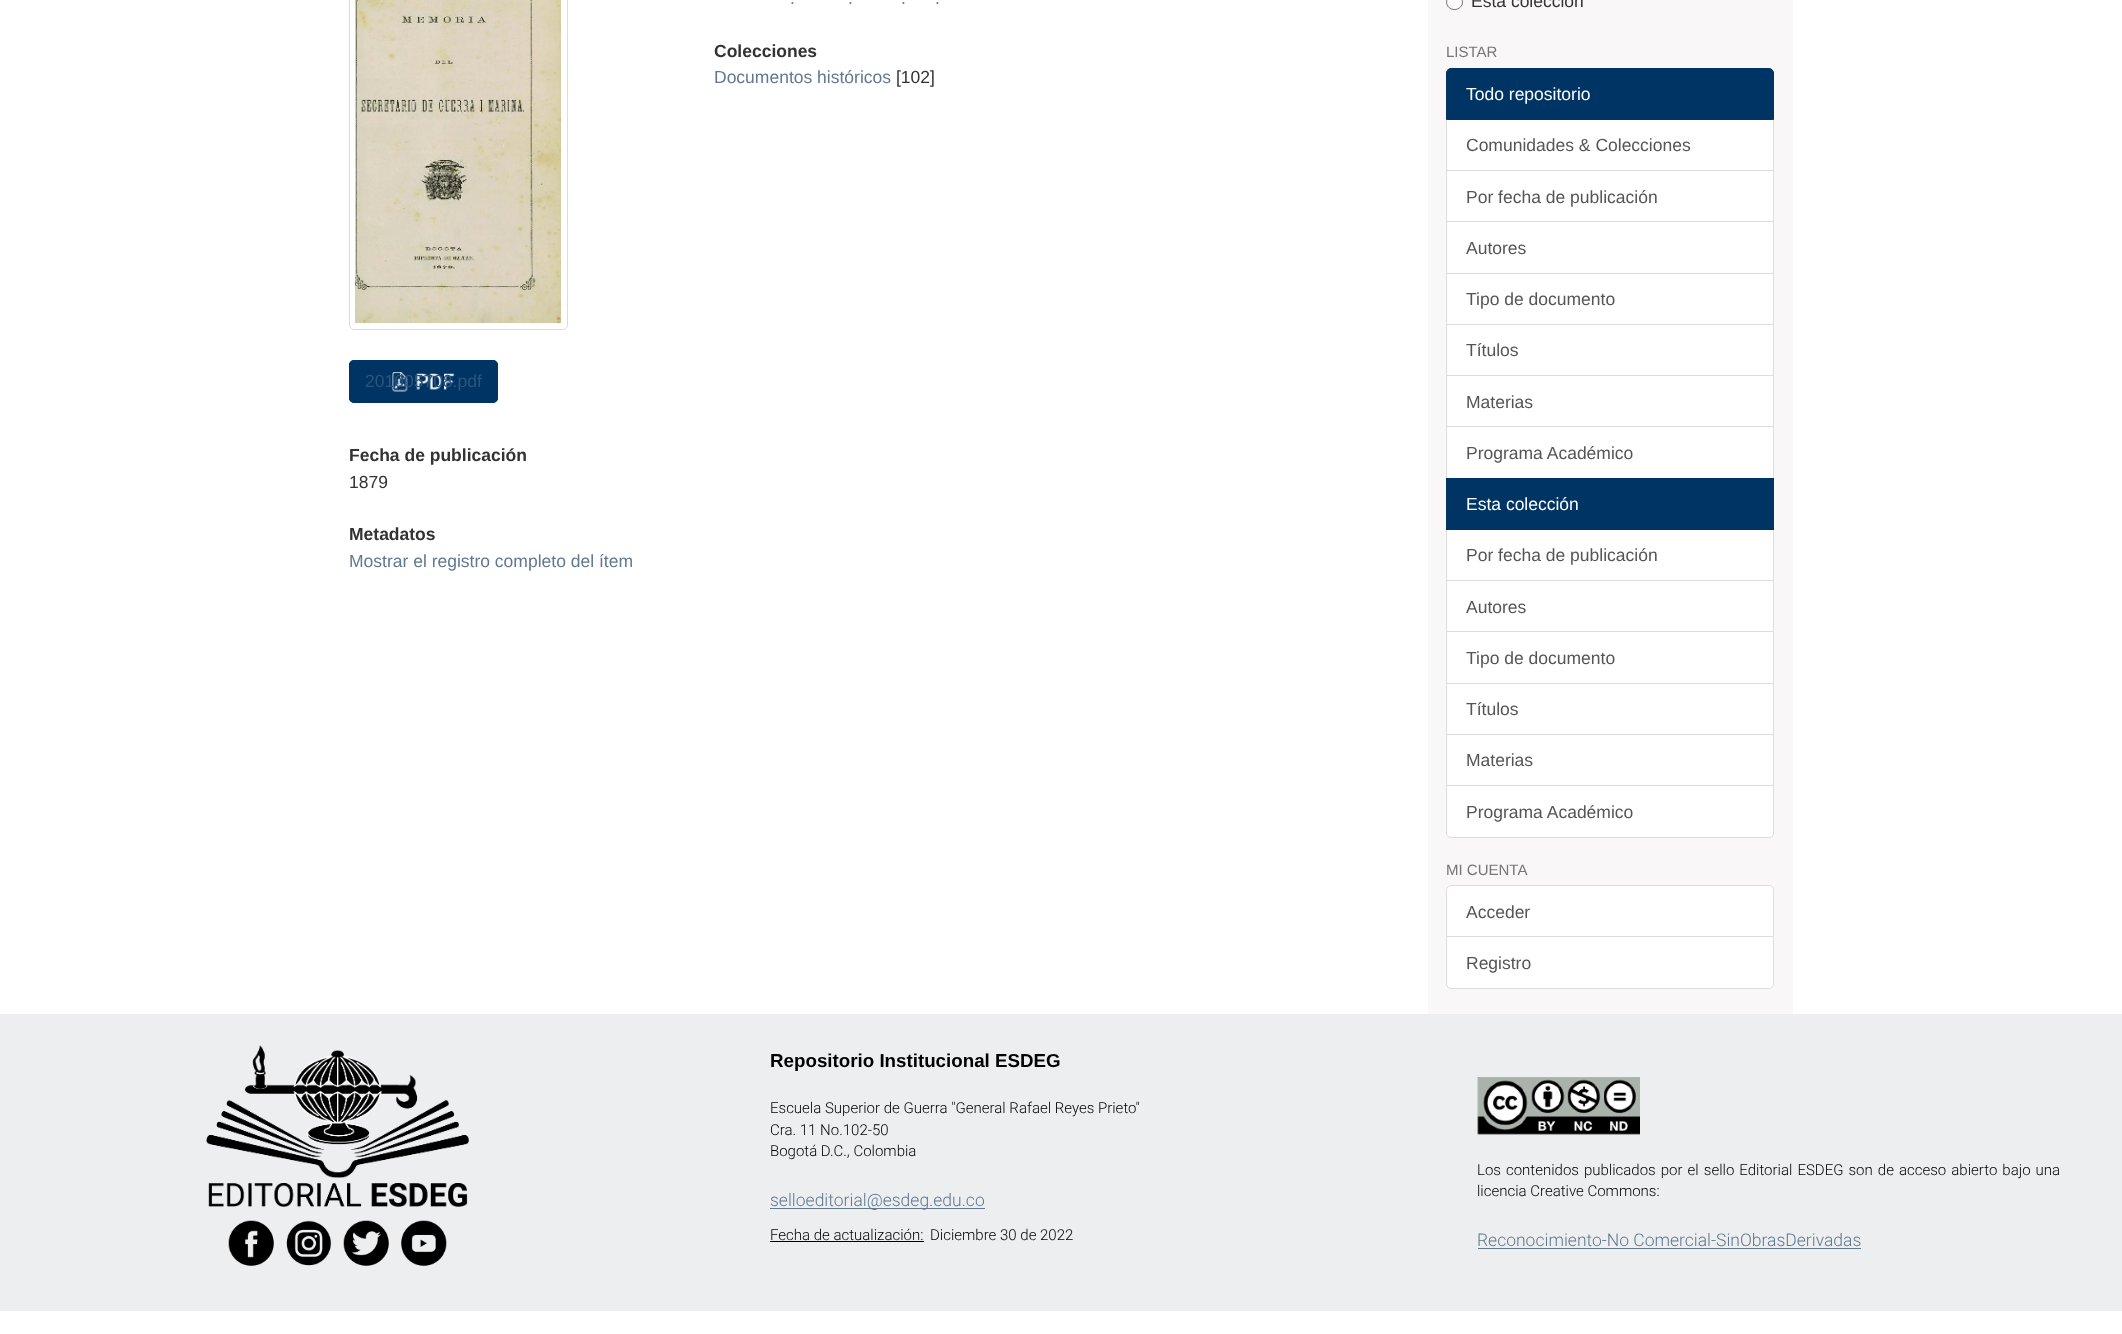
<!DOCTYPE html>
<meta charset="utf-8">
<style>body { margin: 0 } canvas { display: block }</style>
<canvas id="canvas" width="2122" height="1334"></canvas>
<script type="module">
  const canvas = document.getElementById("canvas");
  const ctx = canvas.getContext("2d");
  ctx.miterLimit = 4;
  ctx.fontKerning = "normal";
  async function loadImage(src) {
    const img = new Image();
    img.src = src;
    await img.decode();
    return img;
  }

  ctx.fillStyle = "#ffffff";
  ctx.fillRect(0, 0, 2122, 1334);
  ctx.font = "17.5px Liberation Sans";
  ctx.fillStyle = "#607890";
  ctx.fillText(".", 790, 4);
  ctx.fillText(".", 848, 4);
  ctx.fillText(".", 901, 4);
  ctx.fillText(".", 935, 4);
  ctx.font = "bold 17.5px Liberation Sans";
  ctx.fillStyle = "#333333";
  ctx.fillText("Colecciones", 714, 57);
  ctx.font = "17.5px Liberation Sans";
  ctx.fillStyle = "#607890";
  ctx.fillText("Documentos históricos", 714, 83);
  ctx.fillStyle = "#333333";
  ctx.fillText("[102]", 896, 83);
  ctx.beginPath();
  ctx.roundRect(349.5, -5.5, 218, 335, 4.5);
  ctx.strokeStyle = "#dddddd";
  ctx.stroke();
  ctx.drawImage(await loadImage("img1.png"), 355, 0, 207, 324);
  ctx.fillStyle = "#003464";
  ctx.beginPath();
  ctx.roundRect(349, 360, 149, 43, 5);
  ctx.fill();
  ctx.drawImage(await loadImage("img2.png"), 392, 372, 63, 20);
  ctx.beginPath();
  ctx.roundRect(349.5, 360.5, 148, 42, 4.5);
  ctx.strokeStyle = "#003464";
  ctx.stroke();
  ctx.fillStyle = "#2a567e";
  ctx.fillText("201005708.pdf", 365, 387);
  ctx.font = "bold 17.5px Liberation Sans";
  ctx.fillStyle = "#333333";
  ctx.fillText("Fecha de publicación", 349, 461);
  ctx.font = "17.5px Liberation Sans";
  ctx.fillText("1879", 349, 488);
  ctx.font = "bold 17.5px Liberation Sans";
  ctx.fillText("Metadatos", 349, 540);
  ctx.font = "17.5px Liberation Sans";
  ctx.fillStyle = "#607890";
  ctx.fillText("Mostrar el registro completo del ítem", 349, 567);
  ctx.fillStyle = "#f9f7f7";
  ctx.fillRect(1428, 0, 365, 1014);
  ctx.fillStyle = "#ffffff";
  ctx.beginPath();
  ctx.roundRect(1446.5, -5.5, 16, 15, 7.5);
  ctx.fill();
  ctx.strokeStyle = "#767676";
  ctx.stroke();
  ctx.fillStyle = "#333333";
  ctx.fillText("Esta colección", 1471, 7);
  ctx.font = "15px Liberation Sans";
  ctx.fillStyle = "#777777";
  ctx.fillText("LISTAR", 1446, 57);
  ctx.fillStyle = "#ffffff";
  ctx.beginPath();
  ctx.rect(1446.5, 119.5, 327, 51);
  ctx.fill();
  ctx.strokeStyle = "#dddddd";
  ctx.stroke();
  ctx.fillStyle = "#003464";
  ctx.beginPath();
  ctx.roundRect(1446.5, 68.5, 327, 51, [4.5, 4.5, 0, 0]);
  ctx.fill();
  ctx.strokeStyle = "#003464";
  ctx.stroke();
  ctx.font = "17.5px Liberation Sans";
  ctx.fillStyle = "#ffffff";
  ctx.fillText("Todo repositorio", 1466, 100);
  ctx.fillStyle = "#555555";
  ctx.fillText("Comunidades & Colecciones", 1466, 151);
  ctx.fillStyle = "#ffffff";
  ctx.fillRect(1447, 171, 326, 50);
  ctx.strokeStyle = "#dddddd";
  ctx.strokeRect(1446.5, 170.5, 327, 52);
  ctx.fillStyle = "#555555";
  ctx.fillText("Por fecha de publicación", 1466, 203);
  ctx.fillStyle = "#ffffff";
  ctx.beginPath();
  ctx.rect(1446.5, 221.5, 327, 52);
  ctx.fill();
  ctx.stroke();
  ctx.fillStyle = "#555555";
  ctx.fillText("Autores", 1466, 254);
  ctx.fillStyle = "#ffffff";
  ctx.beginPath();
  ctx.rect(1446.5, 273.5, 327, 51);
  ctx.fill();
  ctx.stroke();
  ctx.fillStyle = "#555555";
  ctx.fillText("Tipo de documento", 1466, 305);
  ctx.fillStyle = "#ffffff";
  ctx.beginPath();
  ctx.rect(1446.5, 324.5, 327, 51);
  ctx.fill();
  ctx.stroke();
  ctx.fillStyle = "#555555";
  ctx.fillText("Títulos", 1466, 356);
  ctx.fillStyle = "#ffffff";
  ctx.fillRect(1447, 376, 326, 50);
  ctx.strokeRect(1446.5, 375.5, 327, 52);
  ctx.fillStyle = "#555555";
  ctx.fillText("Materias", 1466, 408);
  ctx.fillStyle = "#ffffff";
  ctx.beginPath();
  ctx.rect(1446.5, 426.5, 327, 52);
  ctx.fill();
  ctx.stroke();
  ctx.fillStyle = "#555555";
  ctx.fillText("Programa Académico", 1466, 459);
  ctx.fillStyle = "#ffffff";
  ctx.beginPath();
  ctx.rect(1446.5, 529.5, 327, 51);
  ctx.fill();
  ctx.stroke();
  ctx.fillStyle = "#003464";
  ctx.fillRect(1446, 478, 328, 52);
  ctx.fillStyle = "#ffffff";
  ctx.fillText("Esta colección", 1466, 510);
  ctx.fillStyle = "#555555";
  ctx.fillText("Por fecha de publicación", 1466, 561);
  ctx.fillStyle = "#ffffff";
  ctx.fillRect(1447, 581, 326, 50);
  ctx.strokeRect(1446.5, 580.5, 327, 52);
  ctx.fillStyle = "#555555";
  ctx.fillText("Autores", 1466, 613);
  ctx.fillStyle = "#ffffff";
  ctx.beginPath();
  ctx.rect(1446.5, 631.5, 327, 52);
  ctx.fill();
  ctx.stroke();
  ctx.fillStyle = "#555555";
  ctx.fillText("Tipo de documento", 1466, 664);
  ctx.fillStyle = "#ffffff";
  ctx.beginPath();
  ctx.rect(1446.5, 683.5, 327, 51);
  ctx.fill();
  ctx.stroke();
  ctx.fillStyle = "#555555";
  ctx.fillText("Títulos", 1466, 715);
  ctx.fillStyle = "#ffffff";
  ctx.beginPath();
  ctx.rect(1446.5, 734.5, 327, 51);
  ctx.fill();
  ctx.stroke();
  ctx.fillStyle = "#555555";
  ctx.fillText("Materias", 1466, 766);
  ctx.fillStyle = "#ffffff";
  ctx.beginPath();
  ctx.roundRect(1446.5, 785.5, 327, 52, [0, 0, 4.5, 4.5]);
  ctx.fill();
  ctx.stroke();
  ctx.fillStyle = "#555555";
  ctx.fillText("Programa Académico", 1466, 818);
  ctx.font = "15px Liberation Sans";
  ctx.fillStyle = "#777777";
  ctx.fillText("MI CUENTA", 1446, 875);
  ctx.fillStyle = "#ffffff";
  ctx.beginPath();
  ctx.roundRect(1446.5, 885.5, 327, 52, [4.5, 4.5, 0, 0]);
  ctx.fill();
  ctx.stroke();
  ctx.font = "17.5px Liberation Sans";
  ctx.fillStyle = "#555555";
  ctx.fillText("Acceder", 1466, 918);
  ctx.fillStyle = "#ffffff";
  ctx.beginPath();
  ctx.roundRect(1446.5, 936.5, 327, 52, [0, 0, 4.5, 4.5]);
  ctx.fill();
  ctx.stroke();
  ctx.fillStyle = "#555555";
  ctx.fillText("Registro", 1466, 969);
  ctx.fillStyle = "#edeef0";
  ctx.fillRect(0, 1015, 2122, 296);
  ctx.fillStyle = "#eeeeee";
  ctx.fillRect(0, 1014, 2122, 1);
  ctx.drawImage(await loadImage("img3.png"), 206, 1045, 263, 162);
  ctx.drawImage(await loadImage("img4.png"), 228, 1220, 46, 46);
  ctx.drawImage(await loadImage("img5.png"), 286, 1220, 46, 46);
  ctx.drawImage(await loadImage("img6.png"), 343, 1220, 46, 46);
  ctx.drawImage(await loadImage("img7.png"), 401, 1220, 46, 46);
  ctx.font = "bold 18.75px Liberation Sans";
  ctx.fillStyle = "#000000";
  ctx.fillText("Repositorio Institucional ESDEG", 770, 1067);
  ctx.font = "300 15px Roboto";
  ctx.fillText("Escuela Superior de Guerra \"General Rafael Reyes Prieto\"", 770, 1113);
  ctx.fillText("Cra. 11 No.102-50", 770, 1135);
  ctx.fillText("Bogotá D.C., Colombia", 770, 1156);
  ctx.fillStyle = "#607890";
  ctx.fillRect(770, 1208, 215, 1);
  ctx.font = "300 17.5px Roboto";
  ctx.fillText("selloeditorial@esdeg.edu.co", 770, 1206);
  ctx.font = "300 15px Roboto";
  ctx.fillStyle = "#000000";
  ctx.fillText("Fecha de actualización:", 770, 1240);
  ctx.fillRect(770, 1241, 154, 1);
  ctx.fillText("Diciembre 30 de 2022", 930, 1240);
  ctx.drawImage(await loadImage("img8.png"), 1477, 1077, 163, 58);
  ctx.wordSpacing = "1.4px";
  ctx.fillText("Los contenidos publicados por el sello Editorial ESDEG son de acceso abierto bajo una", 1477, 1175);
  ctx.wordSpacing = "0px";
  ctx.fillText("licencia Creative Commons:", 1477, 1196);
  ctx.font = "300 17.5px Roboto";
  ctx.fillStyle = "#607890";
  ctx.fillText("Reconocimiento-No Comercial-SinObrasDerivadas", 1477, 1246);
  ctx.fillRect(1478, 1248, 383, 1);
</script>
